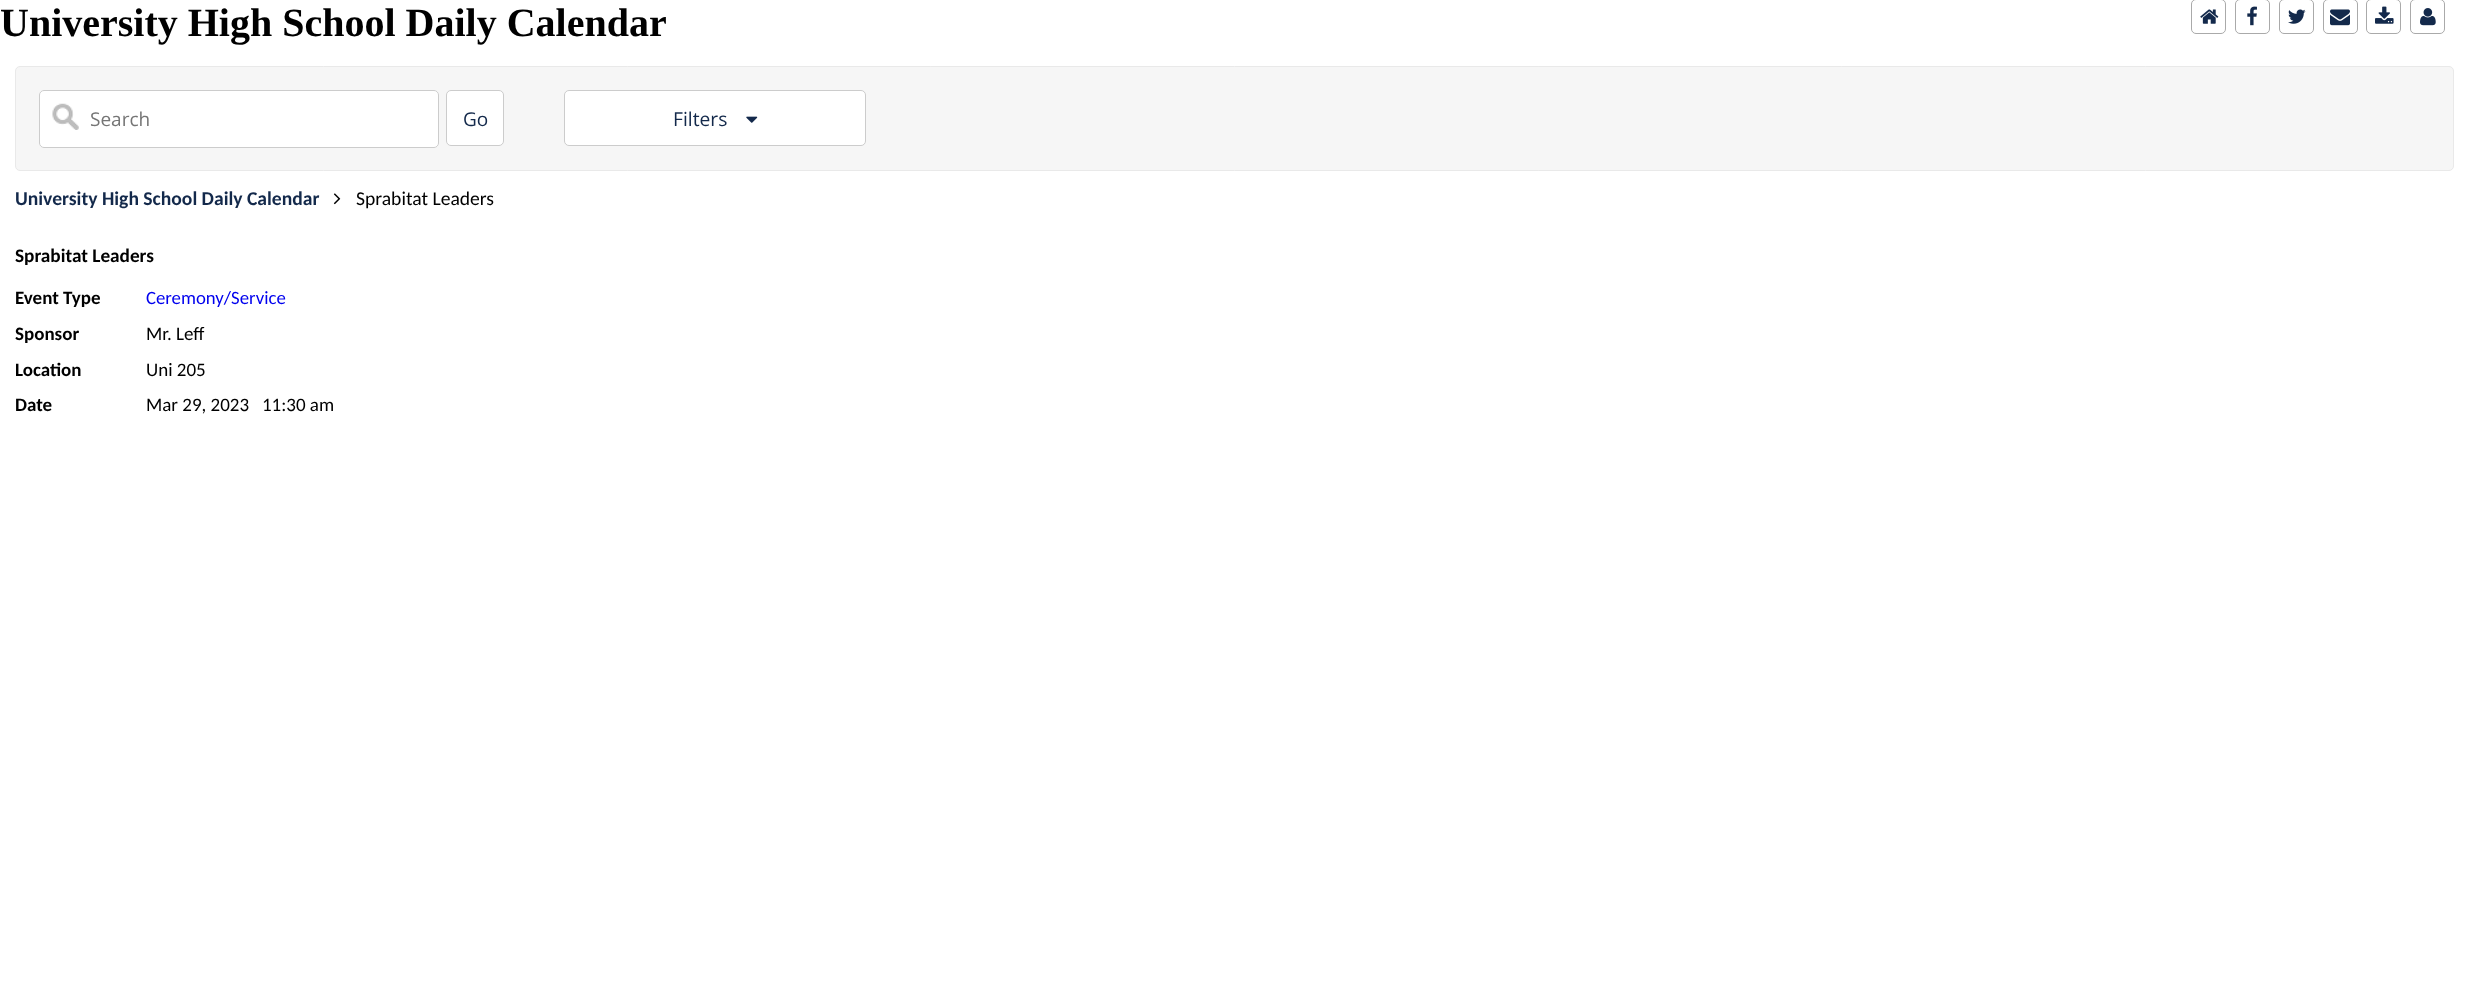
<!DOCTYPE html>
<meta charset="utf-8">
<style>body { margin: 0 } canvas { display: block }</style>
<canvas id="canvas" width="2468" height="999"></canvas>
<script type="module">
  const canvas = document.getElementById("canvas");
  const ctx = canvas.getContext("2d");
  ctx.miterLimit = 4;
  ctx.fontKerning = "normal";
  async function loadImage(src) {
    const img = new Image();
    img.src = src;
    await img.decode();
    return img;
  }

  ctx.fillStyle = "#ffffff";
  ctx.fillRect(0, 0, 2468, 999);
  ctx.font = "bold 40px Liberation Serif";
  ctx.fillStyle = "#000000";
  ctx.fillText("University High School Daily Calendar", 0, 36);
  ctx.beginPath();
  ctx.roundRect(2191.5, -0.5, 34, 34, 4.5);
  ctx.strokeStyle = "#aaaaaa";
  ctx.stroke();
  ctx.drawImage(await loadImage("img1.png"), 2200, 9, 19, 15);
  ctx.beginPath();
  ctx.roundRect(2235.5, -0.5, 34, 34, 4.5);
  ctx.stroke();
  ctx.drawImage(await loadImage("img2.png"), 2247, 6, 10, 20);
  ctx.beginPath();
  ctx.roundRect(2279.5, -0.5, 34, 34, 4.5);
  ctx.stroke();
  ctx.drawImage(await loadImage("img3.png"), 2288, 9, 18, 15);
  ctx.beginPath();
  ctx.roundRect(2323.5, -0.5, 34, 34, 4.5);
  ctx.stroke();
  ctx.drawImage(await loadImage("img4.png"), 2330, 9, 20, 17);
  ctx.beginPath();
  ctx.roundRect(2366.5, -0.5, 34, 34, 4.5);
  ctx.stroke();
  ctx.drawImage(await loadImage("img5.png"), 2375, 6, 19, 18);
  ctx.beginPath();
  ctx.roundRect(2410.5, -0.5, 34, 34, 4.5);
  ctx.stroke();
  ctx.drawImage(await loadImage("img6.png"), 2420, 8, 16, 18);
  ctx.fillStyle = "#f6f6f6";
  ctx.beginPath();
  ctx.roundRect(15.5, 66.5, 2438, 104, 4.5);
  ctx.fill();
  ctx.strokeStyle = "#e9e9e9";
  ctx.stroke();
  ctx.fillStyle = "#ffffff";
  ctx.beginPath();
  ctx.roundRect(39, 90, 400, 58, 5);
  ctx.fill();
  ctx.drawImage(await loadImage("img7.png"), 52, 103, 27, 27);
  ctx.beginPath();
  ctx.roundRect(39.5, 90.5, 399, 57, 4.5);
  ctx.strokeStyle = "#cccccc";
  ctx.stroke();
  ctx.font = "19px Open Sans";
  ctx.fillStyle = "#757575";
  ctx.fillText("Search", 90, 126);
  ctx.fillStyle = "#ffffff";
  ctx.beginPath();
  ctx.roundRect(446.5, 90.5, 57, 55, 4.5);
  ctx.fill();
  ctx.stroke();
  ctx.fillStyle = "#13294b";
  ctx.fillText("Go", 463, 126);
  ctx.fillStyle = "#ffffff";
  ctx.beginPath();
  ctx.roundRect(564.5, 90.5, 301, 55, 4.5);
  ctx.fill();
  ctx.stroke();
  ctx.font = "19.25px Open Sans";
  ctx.fillStyle = "#13294b";
  ctx.fillText("Filters", 673, 126);
  ctx.drawImage(await loadImage("img8.png"), 746, 116, 12, 7);
  ctx.font = "bold 19.6px Carlito";
  ctx.fillText("University High School Daily Calendar", 15, 205);
  ctx.drawImage(await loadImage("img9.png"), 333, 193, 8, 12);
  ctx.font = "19.6px Carlito";
  ctx.fillStyle = "#000000";
  ctx.fillText("Sprabitat Leaders", 356, 205);
  ctx.font = "bold 19.25px Carlito";
  ctx.fillText("Sprabitat Leaders", 15, 262);
  ctx.font = "bold 19px Carlito";
  ctx.fillText("Event Type", 15, 304);
  ctx.font = "18.75px Carlito";
  ctx.fillStyle = "#0000ee";
  ctx.fillText("Ceremony/Service", 146, 304);
  ctx.font = "bold 19px Carlito";
  ctx.fillStyle = "#000000";
  ctx.fillText("Sponsor", 15, 340);
  ctx.font = "19px Carlito";
  ctx.fillText("Mr. Leff", 146, 340);
  ctx.font = "bold 19px Carlito";
  ctx.fillText("Location", 15, 376);
  ctx.font = "19px Carlito";
  ctx.fillText("Uni 205", 146, 376);
  ctx.font = "bold 19px Carlito";
  ctx.fillText("Date", 15, 411);
  ctx.font = "19px Carlito";
  ctx.fillText("Mar 29, 2023   11:30 am", 146, 411);
</script>
